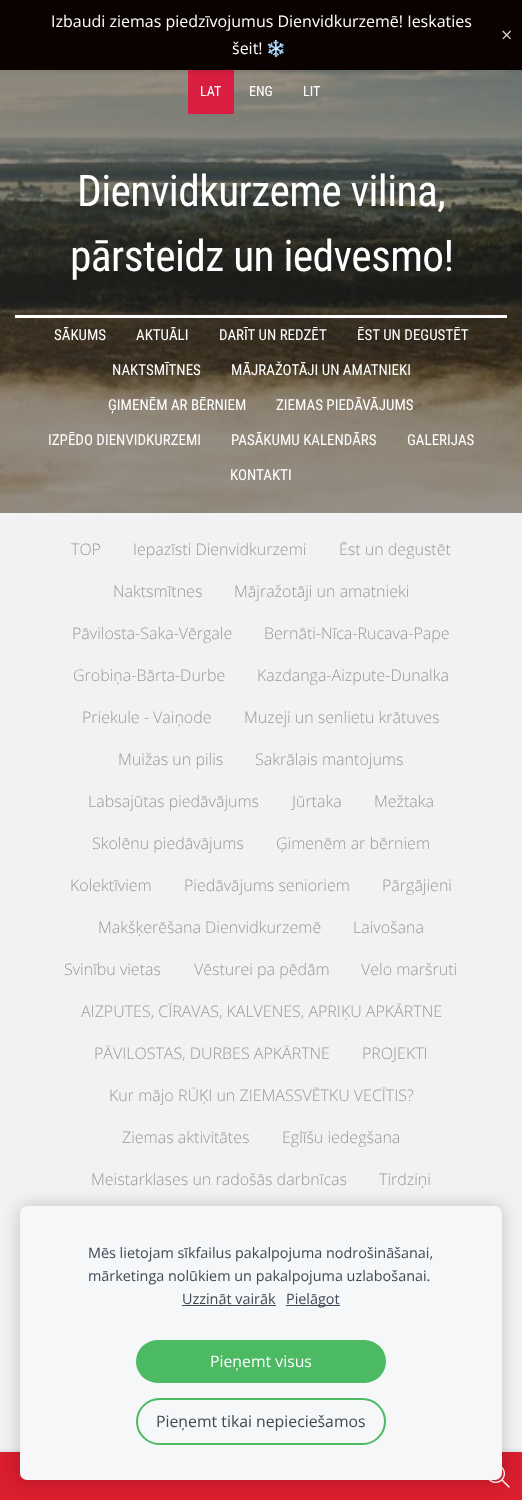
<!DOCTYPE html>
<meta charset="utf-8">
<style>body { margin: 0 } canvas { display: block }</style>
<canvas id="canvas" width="522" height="1500"></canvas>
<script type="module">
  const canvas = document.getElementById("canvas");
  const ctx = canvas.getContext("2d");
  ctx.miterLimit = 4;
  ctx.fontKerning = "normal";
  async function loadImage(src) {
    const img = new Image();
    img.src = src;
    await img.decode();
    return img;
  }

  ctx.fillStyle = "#ffffff";
  ctx.fillRect(0, 0, 522, 1500);
  ctx.drawImage(await loadImage("img1.png"), 0, 70, 522, 443);
  ctx.fillStyle = "#d91e41";
  ctx.fillRect(188, 70, 46, 44);
  ctx.fillStyle = "rgba(0, 0, 0, 0.1)";
  ctx.filter = "blur(2px)";
  ctx.beginPath();
  ctx.rect(0, 2, 522, 70);
  ctx.fill();
  ctx.filter = "none";
  ctx.fillStyle = "#0a0101";
  ctx.fillRect(0, 0, 522, 70);
  ctx.font = "16px Open Sans";
  ctx.fillStyle = "#ffffff";
  ctx.fillText("Izbaudi ziemas piedzīvojumus Dienvidkurzemē! Ieskaties", 51, 27);
  ctx.fillText("šeit!", 232, 54);
  ctx.font = "16px Noto Color Emoji";
  ctx.fillText("❄️", 266, 54);
  ctx.font = "20px Open Sans";
  ctx.fillStyle = "#cecccc";
  ctx.fillText("×", 501, 42);
  ctx.font = "14px Roboto Condensed";
  ctx.fillStyle = "#ffffff";
  ctx.fillText("LAT", 200, 96);
  ctx.fillText("ENG", 249, 96);
  ctx.fillText("LIT", 303, 96);
  ctx.fillRect(15, 315, 492, 3);
  ctx.letterSpacing = "-0.6px";
  ctx.font = "43.5px Roboto Condensed";
  ctx.fillText("Dienvidkurzeme vilina,", 77, 206);
  ctx.fillText("pārsteidz un iedvesmo!", 70, 271);
  ctx.letterSpacing = "0px";
  ctx.font = "15px Roboto Condensed";
  ctx.fillText("SĀKUMS", 54, 340);
  ctx.fillText("AKTUĀLI", 136, 340);
  ctx.fillText("DARĪT UN REDZĒT", 219, 340);
  ctx.fillText("ĒST UN DEGUSTĒT", 357, 340);
  ctx.fillText("NAKTSMĪTNES", 112, 375);
  ctx.fillText("MĀJRAŽOTĀJI UN AMATNIEKI", 231, 375);
  ctx.fillText("ĢIMENĒM AR BĒRNIEM", 108, 410);
  ctx.fillText("ZIEMAS PIEDĀVĀJUMS", 276, 410);
  ctx.fillText("IZPĒDO DIENVIDKURZEMI", 48, 445);
  ctx.fillText("PASĀKUMU KALENDĀRS", 231, 445);
  ctx.fillText("GALERIJAS", 407, 445);
  ctx.fillText("KONTAKTI", 230, 480);
  ctx.fillStyle = "#f2f2f2";
  ctx.fillRect(0, 513, 522, 939);
  ctx.font = "300 16px Open Sans";
  ctx.fillStyle = "#999999";
  ctx.fillText("TOP", 71, 555);
  ctx.fillText("Iepazīsti Dienvidkurzemi", 133, 555);
  ctx.fillText("Ēst un degustēt", 339, 555);
  ctx.fillText("Naktsmītnes", 113, 597);
  ctx.fillText("Mājražotāji un amatnieki", 234, 597);
  ctx.fillText("Pāvilosta-Saka-Vērgale", 72, 639);
  ctx.fillText("Bernāti-Nīca-Rucava-Pape", 264, 639);
  ctx.fillText("Grobiņa-Bārta-Durbe", 73, 681);
  ctx.fillText("Kazdanga-Aizpute-Dunalka", 257, 681);
  ctx.fillText("Priekule - Vaiņode", 82, 723);
  ctx.fillText("Muzeji un senlietu krātuves", 244, 723);
  ctx.fillText("Muižas un pilis", 118, 765);
  ctx.fillText("Sakrālais mantojums", 255, 765);
  ctx.fillText("Labsajūtas piedāvājums", 88, 807);
  ctx.fillText("Jūrtaka", 292, 807);
  ctx.fillText("Mežtaka", 374, 807);
  ctx.fillText("Skolēnu piedāvājums", 92, 849);
  ctx.fillText("Ģimenēm ar bērniem", 276, 849);
  ctx.fillText("Kolektīviem", 70, 891);
  ctx.fillText("Piedāvājums senioriem", 184, 891);
  ctx.fillText("Pārgājieni", 382, 891);
  ctx.fillText("Makšķerēšana Dienvidkurzemē", 98, 933);
  ctx.fillText("Laivošana", 353, 933);
  ctx.fillText("Svinību vietas", 64, 975);
  ctx.fillText("Vēsturei pa pēdām", 194, 975);
  ctx.fillText("Velo maršruti", 361, 975);
  ctx.fillText("AIZPUTES, CĪRAVAS, KALVENES, APRIĶU APKĀRTNE", 81, 1017);
  ctx.fillText("PĀVILOSTAS, DURBES APKĀRTNE", 94, 1059);
  ctx.fillText("PROJEKTI", 362, 1059);
  ctx.fillText("Kur mājo RŪĶI un ZIEMASSVĒTKU VECĪTIS?", 109, 1101);
  ctx.fillText("Ziemas aktivitātes", 122, 1143);
  ctx.fillText("Eglīšu iedegšana", 282, 1143);
  ctx.fillText("Meistarklases un radošās darbnīcas", 91, 1185);
  ctx.fillText("Tirdziņi", 379, 1185);
  ctx.fillStyle = "rgba(0, 0, 0, 0.1)";
  ctx.filter = "blur(2.5px)";
  ctx.beginPath();
  ctx.rect(-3, 1451, 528, 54);
  ctx.fill();
  ctx.filter = "none";
  ctx.fillStyle = "#d91e2e";
  ctx.fillRect(0, 1452, 522, 48);
  ctx.drawImage(await loadImage("img2.png"), 488, 1466, 22, 22);
  ctx.fillStyle = "rgba(0, 0, 0, 0.2)";
  ctx.filter = "blur(8.5px)";
  ctx.beginPath();
  ctx.roundRect(20, 1206, 482, 274, 7);
  ctx.fill();
  ctx.filter = "none";
  ctx.fillStyle = "#f6f7f9";
  ctx.beginPath();
  ctx.roundRect(20, 1206, 482, 274, 7);
  ctx.fill();
  ctx.font = "14.4px Open Sans";
  ctx.fillStyle = "#3f4954";
  ctx.fillText("Mēs lietojam sīkfailus pakalpojuma nodrošināšanai,", 88, 1258);
  ctx.fillText("mārketinga nolūkiem un pakalpojuma uzlabošanai.", 88, 1281);
  ctx.fillText("Uzzināt vairāk", 182, 1304);
  ctx.fillRect(182, 1305, 94, 1);
  ctx.fillRect(286, 1305, 54, 1);
  ctx.fillText("Pielāgot", 286, 1304);
  ctx.fillStyle = "#4cb963";
  ctx.beginPath();
  ctx.roundRect(136, 1340, 250, 43, 21.5);
  ctx.fill();
  ctx.font = "15.8px Open Sans";
  ctx.fillStyle = "#ffffff";
  ctx.fillText("Pieņemt visus", 210, 1367);
  ctx.beginPath();
  ctx.roundRect(137, 1399, 248, 45, 22.5);
  ctx.strokeStyle = "#4cb963";
  ctx.lineWidth = 2;
  ctx.stroke();
  ctx.fillStyle = "#3f4954";
  ctx.fillText("Pieņemt tikai nepieciešamos", 156, 1427);
</script>
